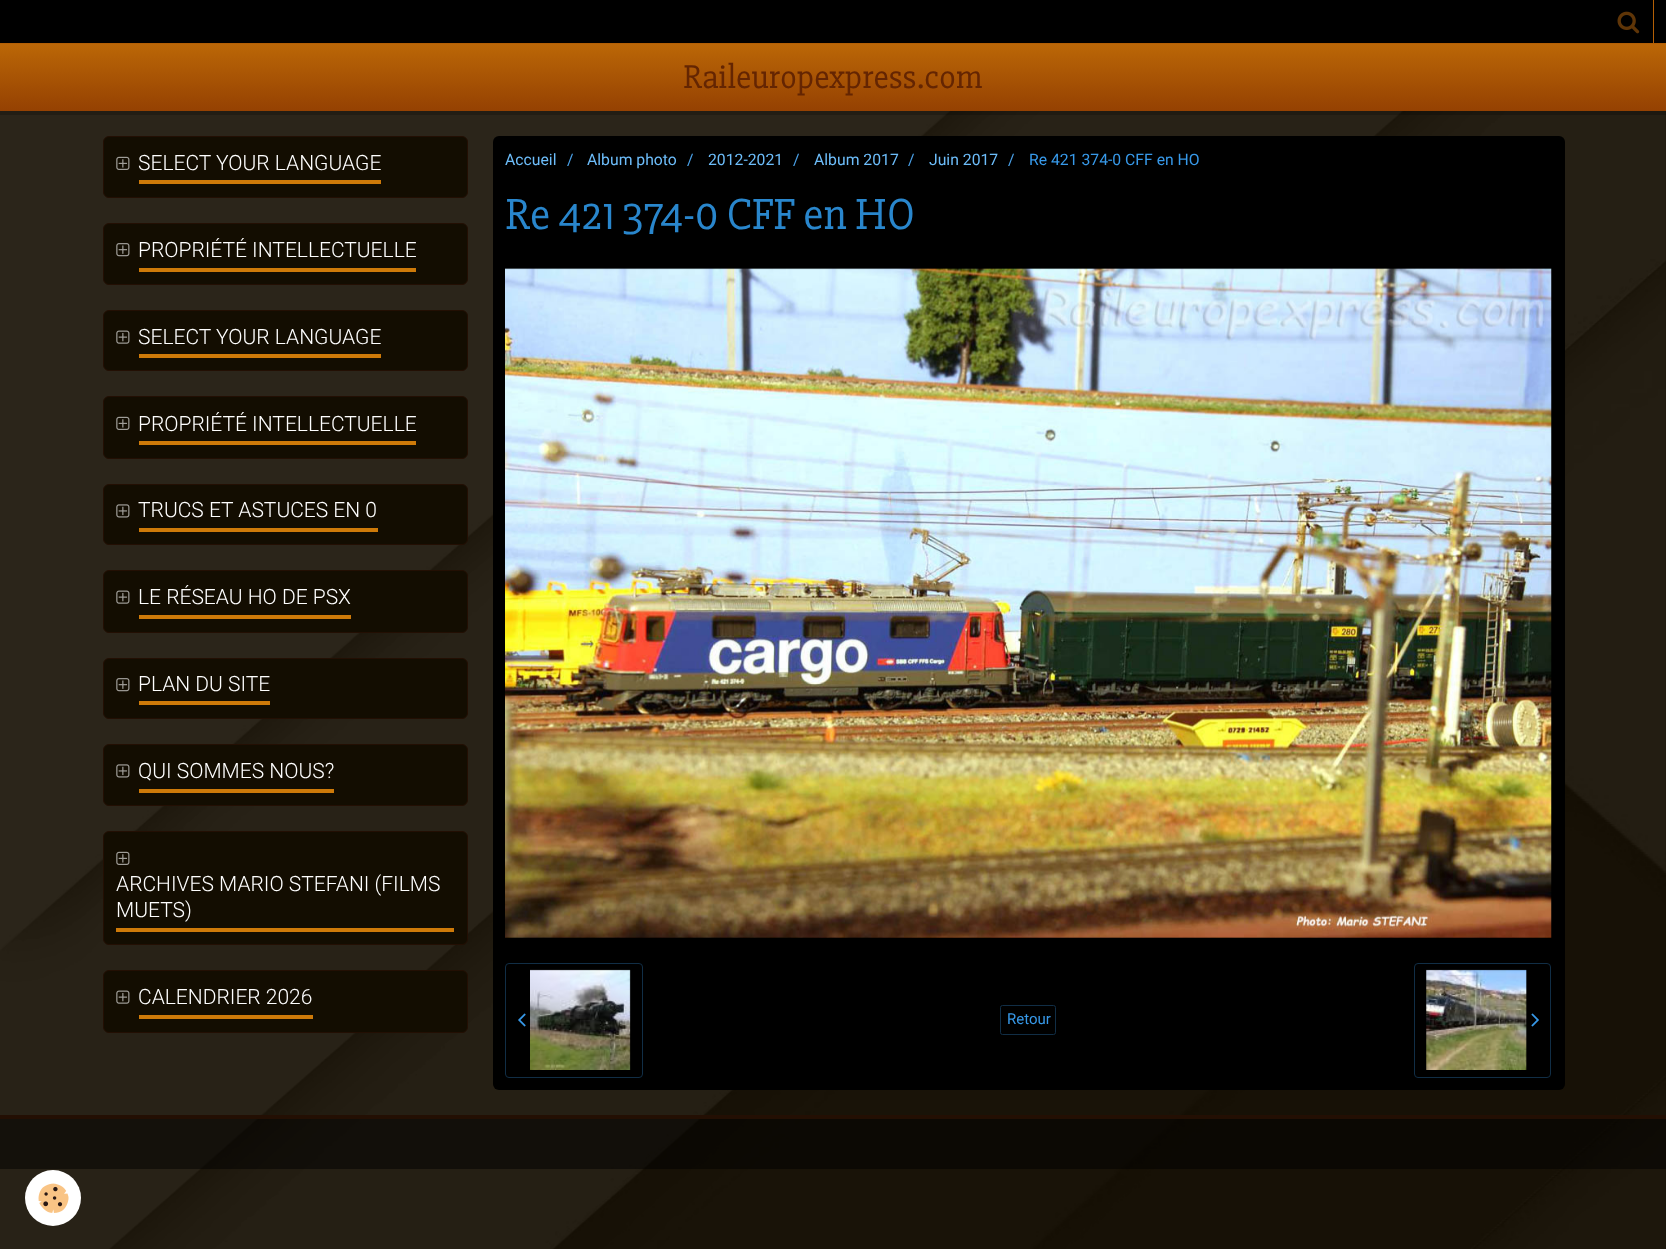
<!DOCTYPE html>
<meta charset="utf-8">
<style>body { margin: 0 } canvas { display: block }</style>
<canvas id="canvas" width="1666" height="1249"></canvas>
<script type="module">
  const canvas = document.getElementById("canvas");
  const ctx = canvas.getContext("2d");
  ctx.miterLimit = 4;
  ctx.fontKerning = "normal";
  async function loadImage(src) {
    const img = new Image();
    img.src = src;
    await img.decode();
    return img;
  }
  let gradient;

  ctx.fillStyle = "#130d01";
  ctx.fillRect(0, 0, 1666, 1249);
  ctx.drawImage(await loadImage("img1.png"), 0, 111, 1666, 1138);
  ctx.fillStyle = "rgba(0, 0, 0, 0.2)";
  ctx.fillRect(0, 111, 1666, 4);
  gradient = ctx.createLinearGradient(833, 0, 833, 111);
  gradient.addColorStop(0, "#d4800a");
  gradient.addColorStop(1, "#954102");
  ctx.fillStyle = gradient;
  ctx.fillRect(0, 44, 1666, 67);
  ctx.fillStyle = "#000000";
  ctx.fillRect(0, 0, 1666, 43);
  ctx.fillStyle = "#b35f05";
  ctx.fillRect(0, 43, 1666, 1);
  ctx.fillRect(1653, 0, 1, 43);
  ctx.drawImage(await loadImage("img2.png"), 1617, 11, 23, 23);
  ctx.font = "34.1px 'Slabo 27px'";
  ctx.fillStyle = "#642502";
  ctx.fillText("Raileuropexpress.com", 683, 88);
  ctx.fillStyle = "#130d01";
  ctx.beginPath();
  ctx.roundRect(103.5, 136.5, 364, 61, 5.5);
  ctx.fill();
  ctx.strokeStyle = "#230f03";
  ctx.stroke();
  ctx.drawImage(await loadImage("img3.png"), 116, 156, 14, 14);
  ctx.fillStyle = "#ce7a09";
  ctx.fillRect(139, 180, 242, 4);
  ctx.font = "300 21px Roboto";
  ctx.fillStyle = "#ffffff";
  ctx.fillText("SELECT YOUR LANGUAGE", 138, 170);
  ctx.fillStyle = "#130d01";
  ctx.beginPath();
  ctx.roundRect(103.5, 223.5, 364, 61, 5.5);
  ctx.fill();
  ctx.stroke();
  ctx.drawImage(await loadImage("img4.png"), 116, 243, 14, 14);
  ctx.fillStyle = "#ce7a09";
  ctx.fillRect(139, 268, 277, 4);
  ctx.fillStyle = "#ffffff";
  ctx.fillText("PROPRIÉTÉ INTELLECTUELLE", 138, 257);
  ctx.fillStyle = "#130d01";
  ctx.beginPath();
  ctx.roundRect(103.5, 310.5, 364, 60, 5.5);
  ctx.fill();
  ctx.stroke();
  ctx.drawImage(await loadImage("img5.png"), 116, 330, 14, 14);
  ctx.fillStyle = "#ce7a09";
  ctx.fillRect(139, 354, 242, 4);
  ctx.fillStyle = "#ffffff";
  ctx.fillText("SELECT YOUR LANGUAGE", 138, 344);
  ctx.fillStyle = "#130d01";
  ctx.beginPath();
  ctx.roundRect(103.5, 396.5, 364, 62, 5.5);
  ctx.fill();
  ctx.stroke();
  ctx.drawImage(await loadImage("img3.png"), 116, 416, 14, 14);
  ctx.fillStyle = "#ce7a09";
  ctx.fillRect(139, 441, 277, 4);
  ctx.fillStyle = "#ffffff";
  ctx.fillText("PROPRIÉTÉ INTELLECTUELLE", 138, 431);
  ctx.fillStyle = "#130d01";
  ctx.beginPath();
  ctx.roundRect(103.5, 484.5, 364, 60, 5.5);
  ctx.fill();
  ctx.stroke();
  ctx.drawImage(await loadImage("img6.png"), 116, 504, 14, 14);
  ctx.fillStyle = "#ce7a09";
  ctx.fillRect(139, 528, 239, 4);
  ctx.fillStyle = "#ffffff";
  ctx.fillText("TRUCS ET ASTUCES EN 0", 138, 517);
  ctx.fillStyle = "#130d01";
  ctx.beginPath();
  ctx.roundRect(103.5, 570.5, 364, 62, 5.5);
  ctx.fill();
  ctx.stroke();
  ctx.drawImage(await loadImage("img5.png"), 116, 590, 14, 14);
  ctx.fillStyle = "#ce7a09";
  ctx.fillRect(139, 615, 212, 4);
  ctx.fillStyle = "#ffffff";
  ctx.fillText("LE RÉSEAU HO DE PSX", 138, 604);
  ctx.fillStyle = "#130d01";
  ctx.beginPath();
  ctx.roundRect(103.5, 658.5, 364, 60, 5.5);
  ctx.fill();
  ctx.stroke();
  ctx.drawImage(await loadImage("img4.png"), 116, 678, 14, 14);
  ctx.fillStyle = "#ce7a09";
  ctx.fillRect(139, 701, 131, 4);
  ctx.fillStyle = "#ffffff";
  ctx.fillText("PLAN DU SITE", 138, 691);
  ctx.fillStyle = "#130d01";
  ctx.beginPath();
  ctx.roundRect(103.5, 744.5, 364, 61, 5.5);
  ctx.fill();
  ctx.stroke();
  ctx.drawImage(await loadImage("img6.png"), 116, 764, 14, 14);
  ctx.fillStyle = "#ce7a09";
  ctx.fillRect(139, 789, 195, 4);
  ctx.fillStyle = "#ffffff";
  ctx.fillText("QUI SOMMES NOUS?", 138, 778);
  ctx.fillStyle = "#130d01";
  ctx.beginPath();
  ctx.roundRect(103.5, 831.5, 364, 113, 5.5);
  ctx.fill();
  ctx.stroke();
  ctx.drawImage(await loadImage("img3.png"), 116, 851, 14, 14);
  ctx.fillStyle = "#ce7a09";
  ctx.fillRect(116, 928, 338, 4);
  ctx.fillStyle = "#ffffff";
  ctx.fillText("ARCHIVES MARIO STEFANI (FILMS", 116, 891);
  ctx.fillText("MUETS)", 116, 917);
  ctx.fillStyle = "#130d01";
  ctx.beginPath();
  ctx.roundRect(103.5, 970.5, 364, 62, 5.5);
  ctx.fill();
  ctx.stroke();
  ctx.drawImage(await loadImage("img5.png"), 116, 990, 14, 14);
  ctx.fillStyle = "#ce7a09";
  ctx.fillRect(139, 1015, 174, 4);
  ctx.fillStyle = "#ffffff";
  ctx.fillText("CALENDRIER 2026", 138, 1004);
  ctx.fillStyle = "#000000";
  ctx.beginPath();
  ctx.roundRect(493, 136, 1072, 954, 6);
  ctx.fill();
  ctx.font = "15.75px Roboto";
  ctx.fillStyle = "#6dbdfa";
  ctx.fillText("Accueil", 505, 165);
  ctx.fillStyle = "#4ba3eb";
  ctx.fillText("/", 567, 165);
  ctx.fillStyle = "#6dbdfa";
  ctx.fillText("Album photo", 587, 165);
  ctx.fillStyle = "#4ba3eb";
  ctx.fillText("/", 687, 165);
  ctx.fillStyle = "#6dbdfa";
  ctx.fillText("2012-2021", 708, 165);
  ctx.fillStyle = "#4ba3eb";
  ctx.fillText("/", 793, 165);
  ctx.fillStyle = "#6dbdfa";
  ctx.fillText("Album 2017", 814, 165);
  ctx.fillStyle = "#4ba3eb";
  ctx.fillText("/", 908, 165);
  ctx.fillStyle = "#6dbdfa";
  ctx.fillText("Juin 2017", 929, 165);
  ctx.fillStyle = "#4ba3eb";
  ctx.fillText("/", 1008, 165);
  ctx.fillStyle = "#3799e9";
  ctx.fillText("Re 421 374-0 CFF en HO", 1029, 165);
  ctx.font = "45px 'Slabo 27px'";
  ctx.fillStyle = "#2986cc";
  ctx.fillText("Re 421 374-0 CFF en HO", 505, 229);
  ctx.drawImage(await loadImage("img7.png"), 505, 268, 1047, 670);
  ctx.drawImage(await loadImage("img8.png"), 518, 1013, 8, 14);
  ctx.drawImage(await loadImage("img9.png"), 530, 969, 101, 101);
  ctx.beginPath();
  ctx.roundRect(505.5, 963.5, 137, 114, 3.5);
  ctx.strokeStyle = "#112e46";
  ctx.stroke();
  ctx.beginPath();
  ctx.roundRect(1000.5, 1005.5, 55, 29, 2);
  ctx.stroke();
  ctx.font = "15px Roboto";
  ctx.fillStyle = "#3799e9";
  ctx.fillText("Retour", 1007, 1024);
  ctx.drawImage(await loadImage("img10.png"), 1426, 969, 101, 101);
  ctx.drawImage(await loadImage("img11.png"), 1531, 1013, 8, 14);
  ctx.beginPath();
  ctx.roundRect(1414.5, 963.5, 136, 114, 3.5);
  ctx.stroke();
  ctx.fillStyle = "rgba(0, 0, 0, 0.5)";
  ctx.fillRect(0, 1119, 1666, 50);
  ctx.fillStyle = "#230f03";
  ctx.fillRect(0, 1115, 1666, 4);
  ctx.fillStyle = "#ffffff";
  ctx.beginPath();
  ctx.arc(53, 1198, 28, 0, Math.PI * 2);
  ctx.fill();
  ctx.drawImage(await loadImage("img12.png"), 38, 1183, 31, 30);
</script>
